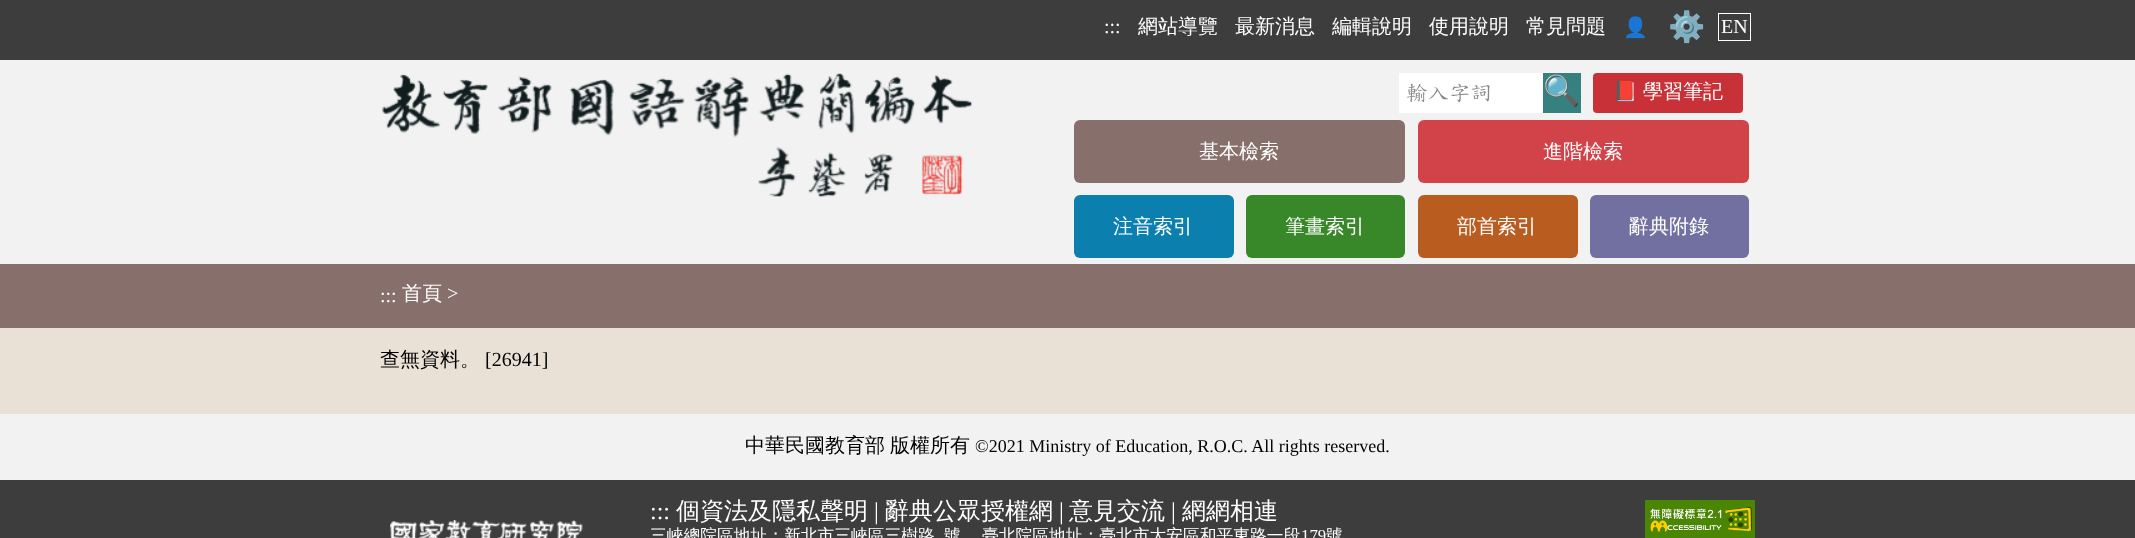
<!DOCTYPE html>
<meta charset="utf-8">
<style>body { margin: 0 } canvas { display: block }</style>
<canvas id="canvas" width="2135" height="538"></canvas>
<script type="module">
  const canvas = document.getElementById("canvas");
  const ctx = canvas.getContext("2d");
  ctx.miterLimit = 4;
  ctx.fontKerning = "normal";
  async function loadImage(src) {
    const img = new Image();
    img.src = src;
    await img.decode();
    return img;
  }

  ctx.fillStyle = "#f2f2f2";
  ctx.fillRect(0, 0, 2135, 538);
  ctx.fillStyle = "#3d3d3d";
  ctx.fillRect(0, 0, 2135, 60);
  ctx.font = "20px Liberation Serif";
  ctx.fillStyle = "#ffffff";
  ctx.fillText(":::", 1104, 33);
  ctx.font = "500 20px WenQuanYi Zen Hei";
  ctx.fillText("網站導覽", 1138, 33);
  ctx.fillText("最新消息", 1235, 33);
  ctx.fillText("編輯說明", 1332, 33);
  ctx.fillText("使用說明", 1429, 33);
  ctx.fillText("常見問題", 1526, 33);
  ctx.font = "20px Noto Color Emoji";
  ctx.fillText("👤", 1623, 34);
  ctx.font = "30px Noto Color Emoji";
  ctx.fillText("⚙️", 1668, 37);
  ctx.strokeStyle = "#ffffff";
  ctx.strokeRect(1718.5, 13.5, 32, 27);
  ctx.font = "20px Liberation Serif";
  ctx.fillText("EN", 1721, 33);
  ctx.drawImage(await loadImage("img1.png"), 382, 73, 590, 124);
  ctx.fillRect(1399, 73, 144, 40);
  ctx.font = "21.5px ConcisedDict";
  ctx.fillStyle = "#888888";
  ctx.fillText("輸入字詞", 1406, 99);
  ctx.fillStyle = "#368180";
  ctx.fillRect(1543, 73, 38, 40);
  ctx.font = "30px Noto Color Emoji";
  ctx.fillStyle = "#ffffff";
  ctx.fillText("🔍", 1543, 101);
  ctx.fillStyle = "#c93138";
  ctx.beginPath();
  ctx.roundRect(1593, 73, 150, 40, 4);
  ctx.fill();
  ctx.font = "20px Noto Color Emoji";
  ctx.fillStyle = "#ffffff";
  ctx.fillText("📕", 1613, 98);
  ctx.font = "500 20px WenQuanYi Zen Hei";
  ctx.fillText("學習筆記", 1643, 98);
  ctx.fillStyle = "#876f6b";
  ctx.beginPath();
  ctx.roundRect(1074, 120, 331, 63, 6);
  ctx.fill();
  ctx.fillStyle = "#ffffff";
  ctx.fillText("基本檢索", 1199, 158);
  ctx.fillStyle = "#d24349";
  ctx.beginPath();
  ctx.roundRect(1418, 120, 331, 63, 6);
  ctx.fill();
  ctx.fillStyle = "#ffffff";
  ctx.fillText("進階檢索", 1543, 158);
  ctx.fillStyle = "#0b7fae";
  ctx.beginPath();
  ctx.roundRect(1074, 195, 160, 63, 6);
  ctx.fill();
  ctx.fillStyle = "#ffffff";
  ctx.fillText("注音索引", 1113, 233);
  ctx.fillStyle = "#388729";
  ctx.beginPath();
  ctx.roundRect(1246, 195, 159, 63, 6);
  ctx.fill();
  ctx.fillStyle = "#ffffff";
  ctx.fillText("筆畫索引", 1285, 233);
  ctx.fillStyle = "#b95c20";
  ctx.beginPath();
  ctx.roundRect(1418, 195, 160, 63, 6);
  ctx.fill();
  ctx.fillStyle = "#ffffff";
  ctx.fillText("部首索引", 1457, 233);
  ctx.fillStyle = "#7270a0";
  ctx.beginPath();
  ctx.roundRect(1590, 195, 159, 63, 6);
  ctx.fill();
  ctx.fillStyle = "#ffffff";
  ctx.fillText("辭典附錄", 1629, 233);
  ctx.fillStyle = "#876f6b";
  ctx.fillRect(0, 264, 2135, 64);
  ctx.font = "20px Liberation Serif";
  ctx.fillStyle = "#ffffff";
  ctx.fillText(":::", 380, 302);
  ctx.font = "500 20px WenQuanYi Zen Hei";
  ctx.fillText("首頁", 402, 300);
  ctx.font = "20px Liberation Serif";
  ctx.fillText(">", 447, 300);
  ctx.fillStyle = "#e9e0d6";
  ctx.fillRect(0, 328, 2135, 86);
  ctx.font = "500 20px WenQuanYi Zen Hei";
  ctx.fillStyle = "#000000";
  ctx.fillText("查無資料。", 380, 366);
  ctx.font = "20px Liberation Serif";
  ctx.fillText("[26941]", 485, 366);
  ctx.fillStyle = "#3d3d3d";
  ctx.fillRect(0, 480, 2135, 58);
  ctx.wordSpacing = "-1px";
  ctx.font = "500 20px WenQuanYi Zen Hei";
  ctx.fillStyle = "#000000";
  ctx.fillText("中華民國教育部 版權所有", 745, 452);
  ctx.wordSpacing = "0px";
  ctx.font = "18px Liberation Serif";
  ctx.fillText("©2021 Ministry of Education, R.O.C. All rights reserved.", 975, 452);
  ctx.drawImage(await loadImage("img2.png"), 390, 520, 193, 18);
  ctx.font = "24px Liberation Serif";
  ctx.fillStyle = "#ffffff";
  ctx.fillText(":::", 650, 519);
  ctx.font = "500 24px WenQuanYi Zen Hei";
  ctx.fillText("個資法及隱私聲明", 676, 519);
  ctx.font = "24px Liberation Serif";
  ctx.fillText("|", 874, 519);
  ctx.font = "500 24px WenQuanYi Zen Hei";
  ctx.fillText("辭典公眾授權網", 885, 519);
  ctx.font = "24px Liberation Serif";
  ctx.fillText("|", 1059, 519);
  ctx.font = "500 24px WenQuanYi Zen Hei";
  ctx.fillText("意見交流", 1069, 519);
  ctx.font = "24px Liberation Serif";
  ctx.fillText("|", 1171, 519);
  ctx.font = "500 24px WenQuanYi Zen Hei";
  ctx.fillText("網網相連", 1182, 519);
  ctx.font = "500 16.75px WenQuanYi Zen Hei";
  ctx.fillText("三峽總院區地址：新北市三峽區三樹路", 650, 541);
  ctx.fillText("號", 944, 541);
  ctx.fillText("臺北院區地址：臺北市大安區和平東路一段", 982, 541);
  ctx.font = "16.75px Liberation Serif";
  ctx.fillText("179", 1301, 541);
  ctx.font = "500 16.75px WenQuanYi Zen Hei";
  ctx.fillText("號", 1326, 541);
  ctx.drawImage(await loadImage("img3.png"), 1645, 500, 110, 38);
</script>
